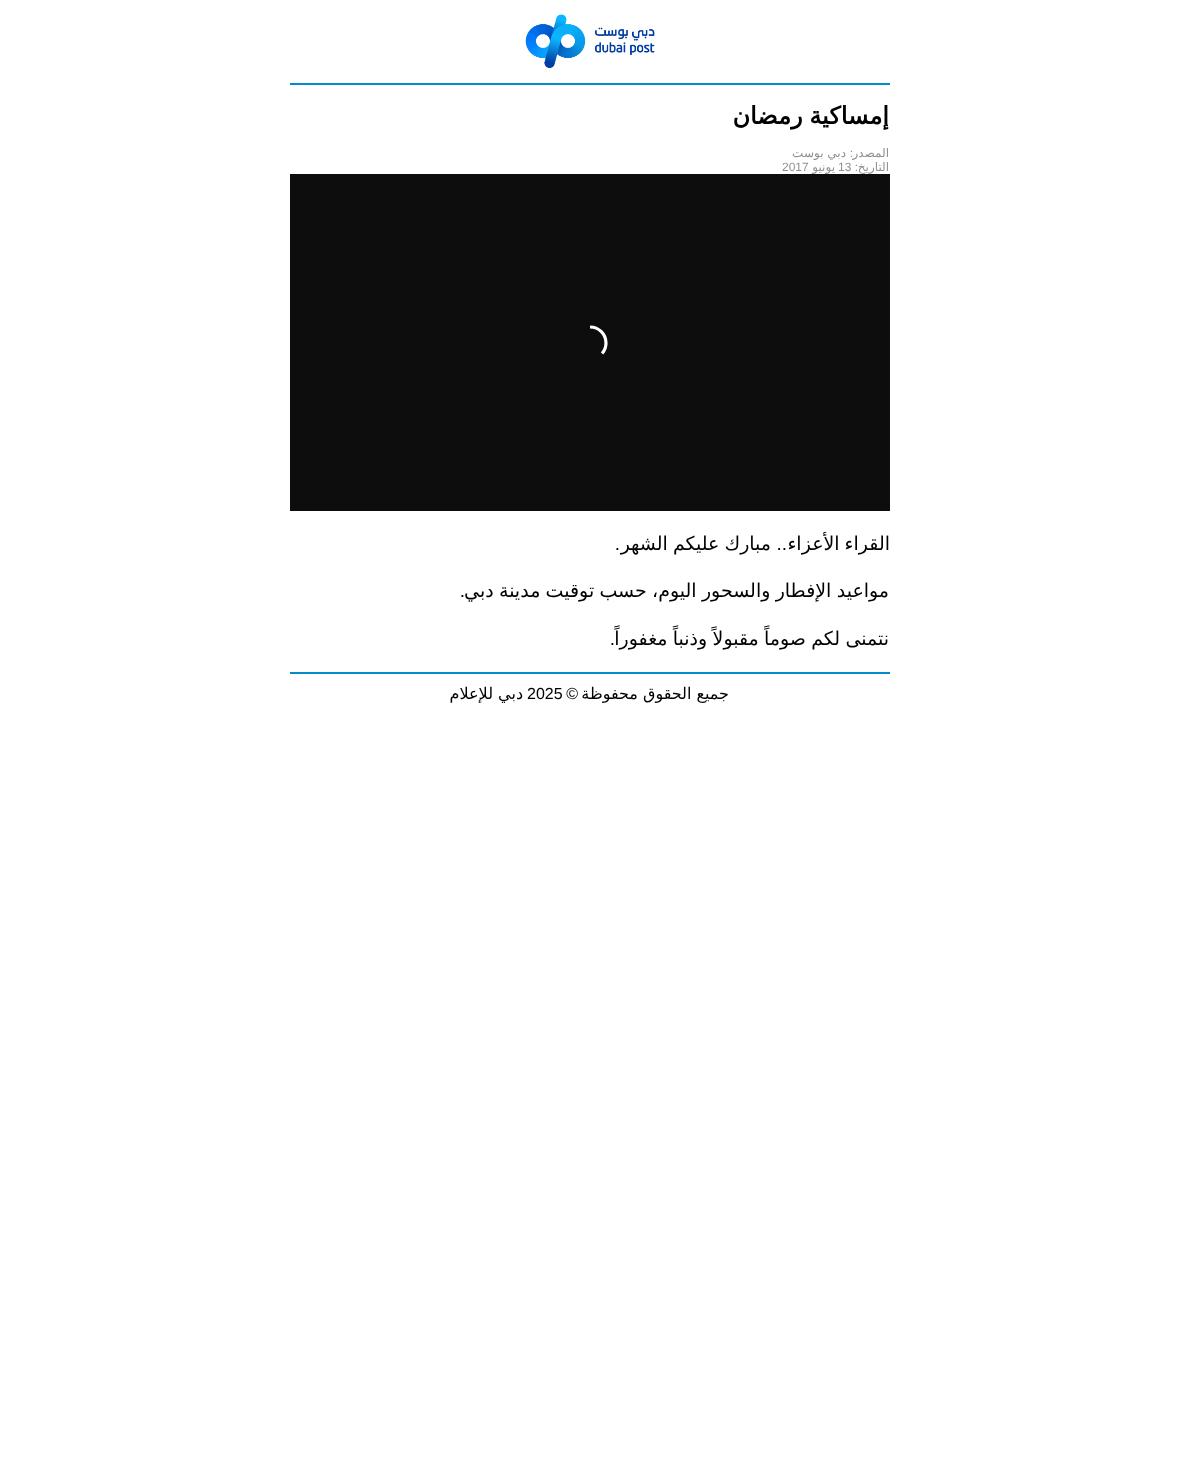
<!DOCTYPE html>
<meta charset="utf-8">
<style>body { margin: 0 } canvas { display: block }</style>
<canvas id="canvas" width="1179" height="1460"></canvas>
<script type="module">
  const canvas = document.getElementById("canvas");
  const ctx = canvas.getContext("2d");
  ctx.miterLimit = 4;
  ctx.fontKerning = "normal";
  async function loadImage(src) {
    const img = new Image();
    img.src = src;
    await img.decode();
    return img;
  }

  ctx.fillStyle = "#ffffff";
  ctx.fillRect(0, 0, 1179, 1460);
  ctx.drawImage(await loadImage("img1.png"), 525, 14, 130, 55);
  ctx.fillStyle = "#008dca";
  ctx.fillRect(290, 83, 600, 2);
  ctx.fillRect(290, 672, 600, 2);
  ctx.wordSpacing = "-1px";
  ctx.direction = "rtl";
  ctx.font = "bold 24px DejaVu Sans";
  ctx.fillStyle = "#000000";
  ctx.fillText("إمساكية رمضان", 889, 124);
  ctx.wordSpacing = "0px";
  ctx.font = "12px DejaVu Sans";
  ctx.fillStyle = "#909090";
  ctx.fillText("المصدر", 889, 157);
  ctx.font = "12px Liberation Sans";
  ctx.fillText(":", 853, 157);
  ctx.font = "12px DejaVu Sans";
  ctx.fillText("دبي بوست", 846, 157);
  ctx.fillText("التاريخ", 889, 171);
  ctx.font = "12px Liberation Sans";
  ctx.fillText(":", 858, 171);
  ctx.direction = "ltr";
  ctx.fillText("13", 838, 171);
  ctx.direction = "rtl";
  ctx.font = "12px DejaVu Sans";
  ctx.fillText("يونيو", 835, 171);
  ctx.direction = "ltr";
  ctx.font = "12px Liberation Sans";
  ctx.fillText("2017", 782, 171);
  ctx.drawImage(await loadImage("img2.png"), 290, 174, 600, 337);
  ctx.wordSpacing = "-1px";
  ctx.direction = "rtl";
  ctx.font = "19px DejaVu Sans";
  ctx.fillStyle = "#000000";
  ctx.fillText("القراء الأعزاء", 890, 550);
  ctx.wordSpacing = "0px";
  ctx.font = "19px Liberation Sans";
  ctx.fillText("..", 787, 550);
  ctx.wordSpacing = "-1px";
  ctx.font = "19px DejaVu Sans";
  ctx.fillText("مبارك عليكم الشهر", 771, 550);
  ctx.wordSpacing = "0px";
  ctx.font = "19px Liberation Sans";
  ctx.fillText(".", 620, 550);
  ctx.wordSpacing = "-0.75px";
  ctx.font = "19px DejaVu Sans";
  ctx.fillText("مواعيد الإفطار والسحور اليوم، حسب توقيت مدينة دبي", 889, 597);
  ctx.wordSpacing = "0px";
  ctx.font = "19px Liberation Sans";
  ctx.fillText(".", 465, 597);
  ctx.wordSpacing = "-0.75px";
  ctx.font = "19px DejaVu Sans";
  ctx.fillText("نتمنى لكم صوماً مقبولاً وذنباً مغفوراً", 889, 645);
  ctx.wordSpacing = "0px";
  ctx.font = "19px Liberation Sans";
  ctx.fillText(".", 615, 645);
  ctx.font = "16px DejaVu Sans";
  ctx.fillText("جميع الحقوق محفوظة", 729, 699);
  ctx.font = "16px Liberation Sans";
  ctx.fillText("©", 578, 699);
  ctx.direction = "ltr";
  ctx.fillText("2025", 527, 699);
  ctx.direction = "rtl";
  ctx.font = "16px DejaVu Sans";
  ctx.fillText("دبي للإعلام", 523, 699);
</script>
